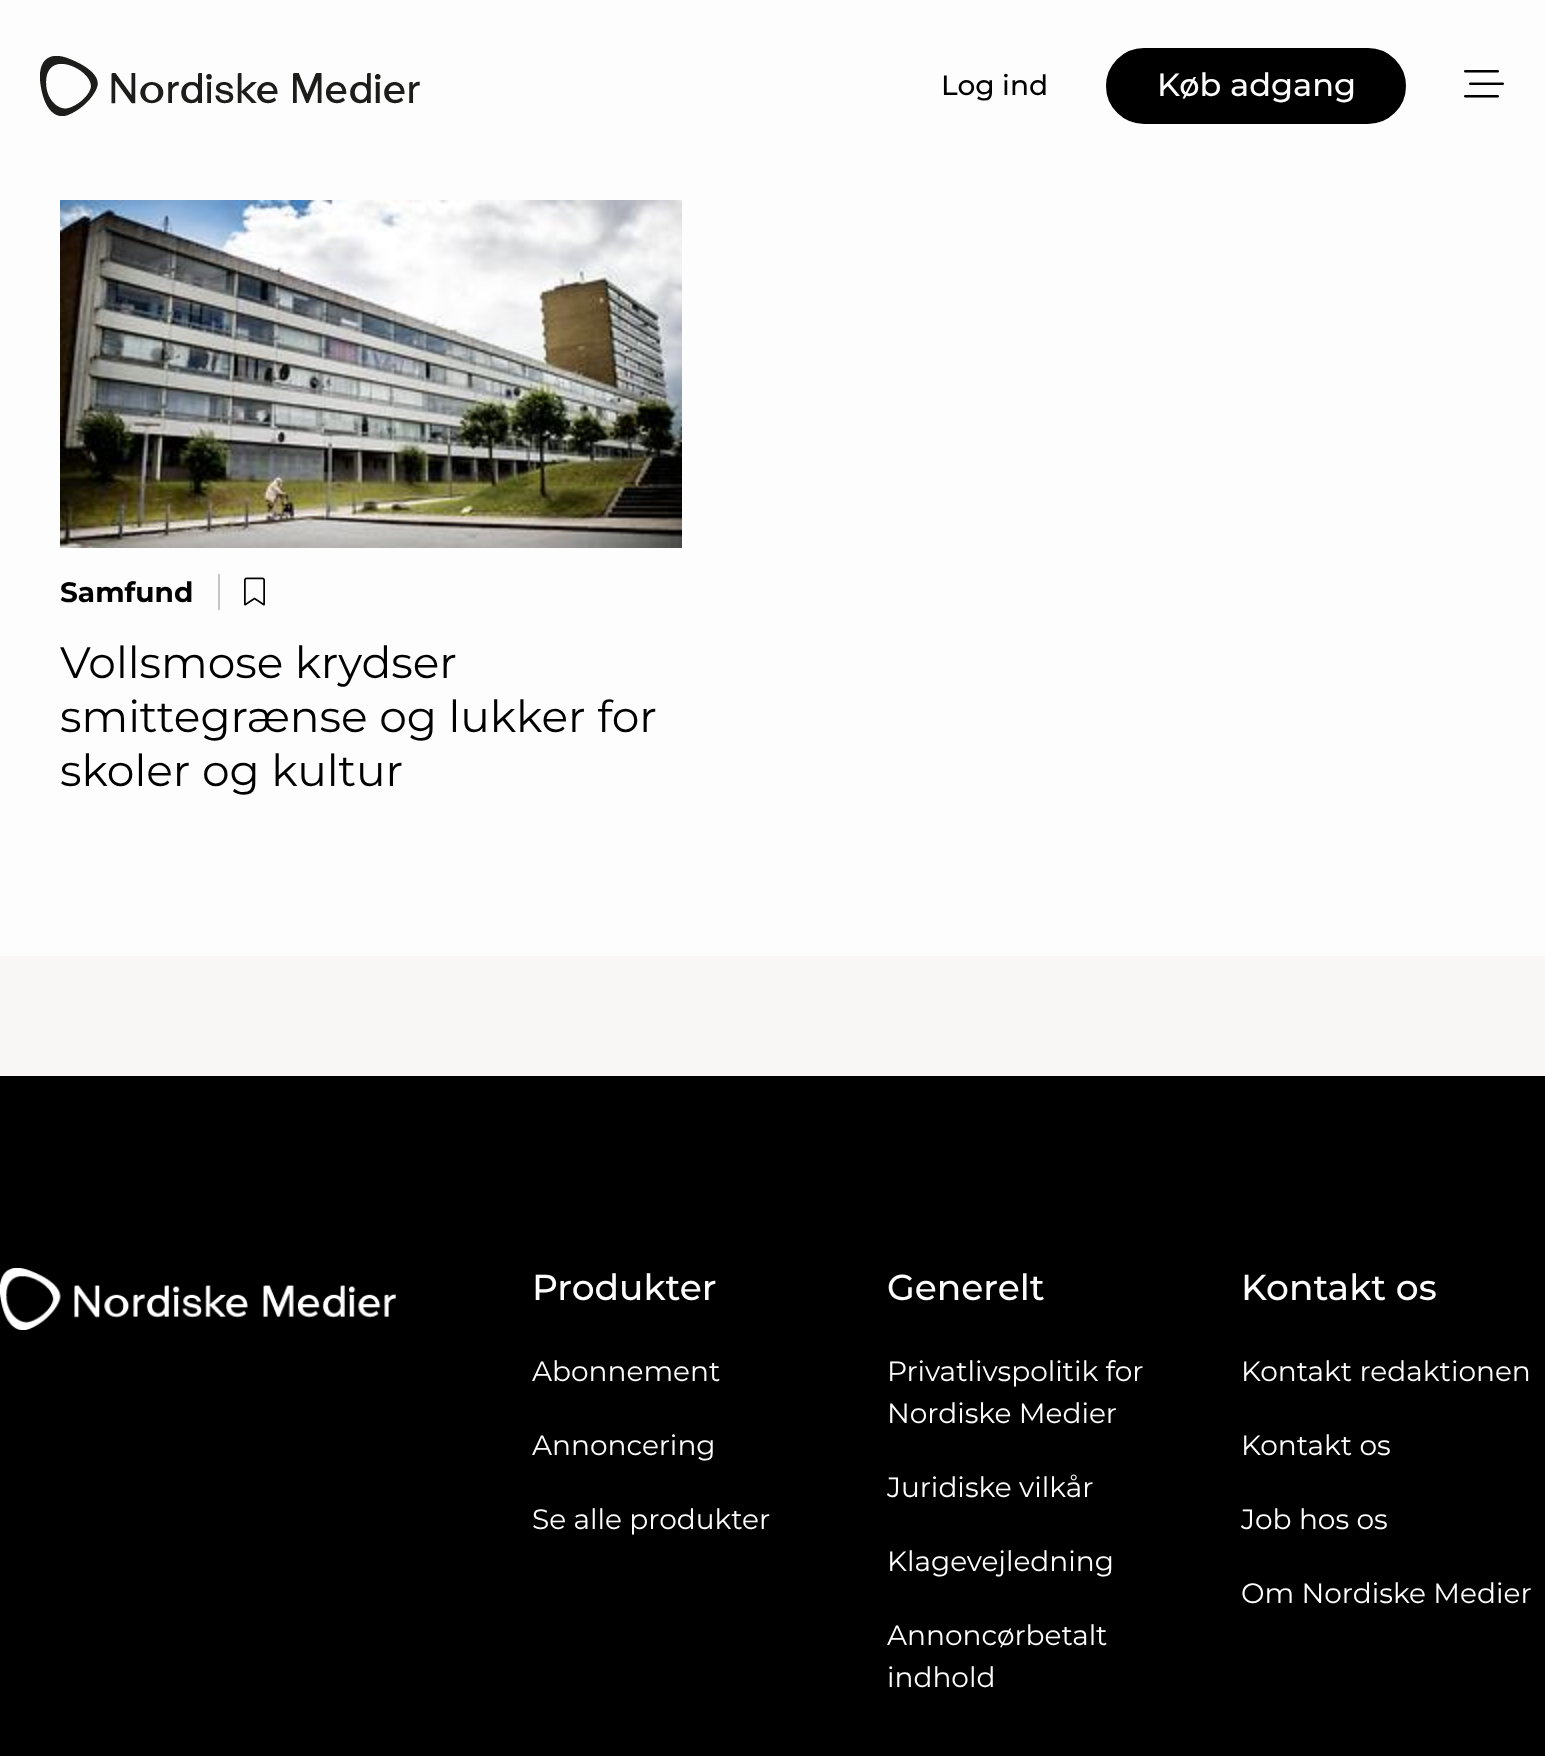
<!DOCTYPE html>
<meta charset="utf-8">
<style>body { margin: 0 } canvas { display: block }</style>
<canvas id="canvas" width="1545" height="1756"></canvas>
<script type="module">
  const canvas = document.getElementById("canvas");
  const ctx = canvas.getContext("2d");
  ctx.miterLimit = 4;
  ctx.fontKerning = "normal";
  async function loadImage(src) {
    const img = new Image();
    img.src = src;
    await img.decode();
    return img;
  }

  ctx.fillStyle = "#f8f7f6";
  ctx.fillRect(0, 0, 1545, 1756);
  ctx.fillStyle = "#fdfdfd";
  ctx.fillRect(0, 0, 1545, 956);
  ctx.drawImage(await loadImage("img1.png"), 40, 56, 380, 60);
  ctx.font = "500 28px Montserrat";
  ctx.fillStyle = "#000000";
  ctx.fillText("Log ind", 941, 95);
  ctx.beginPath();
  ctx.roundRect(1107, 49, 298, 74, 37);
  ctx.fill();
  ctx.strokeStyle = "#000000";
  ctx.lineWidth = 2;
  ctx.stroke();
  ctx.font = "500 32px Montserrat";
  ctx.fillStyle = "#fdfdfd";
  ctx.fillText("Køb adgang", 1157, 96);
  ctx.drawImage(await loadImage("img2.png"), 1464, 70, 40, 28);
  ctx.drawImage(await loadImage("img3.png"), 60, 200, 622, 348);
  ctx.font = "bold 28px Montserrat";
  ctx.fillStyle = "#000000";
  ctx.fillText("Samfund", 60, 602);
  ctx.fillStyle = "#c6c5c4";
  ctx.fillRect(218, 574, 2, 36);
  ctx.drawImage(await loadImage("img4.png"), 244, 577, 21, 29);
  ctx.font = "44px Montserrat";
  ctx.fillStyle = "#000000";
  ctx.fillText("Vollsmose krydser", 60, 678);
  ctx.fillText("smittegrænse og lukker for", 60, 732);
  ctx.fillText("skoler og kultur", 60, 786);
  ctx.fillRect(0, 1076, 1545, 680);
  ctx.drawImage(await loadImage("img5.png"), 0, 1268, 396, 62);
  ctx.font = "500 36px Montserrat";
  ctx.fillStyle = "#fdfdfd";
  ctx.fillText("Produkter", 532, 1300);
  ctx.font = "28px Montserrat";
  ctx.fillText("Abonnement", 532, 1381);
  ctx.fillText("Annoncering", 532, 1455);
  ctx.fillText("Se alle produkter", 532, 1529);
  ctx.font = "500 36px Montserrat";
  ctx.fillText("Generelt", 887, 1300);
  ctx.font = "28px Montserrat";
  ctx.fillText("Privatlivspolitik for", 887, 1381);
  ctx.fillText("Nordiske Medier", 887, 1423);
  ctx.fillText("Juridiske vilkår", 887, 1497);
  ctx.fillText("Klagevejledning", 887, 1571);
  ctx.fillText("Annoncørbetalt", 887, 1645);
  ctx.fillText("indhold", 887, 1687);
  ctx.font = "500 36px Montserrat";
  ctx.fillText("Kontakt os", 1241, 1300);
  ctx.font = "28px Montserrat";
  ctx.fillText("Kontakt redaktionen", 1241, 1381);
  ctx.fillText("Kontakt os", 1241, 1455);
  ctx.fillText("Job hos os", 1241, 1529);
  ctx.fillText("Om Nordiske Medier", 1241, 1603);
</script>
